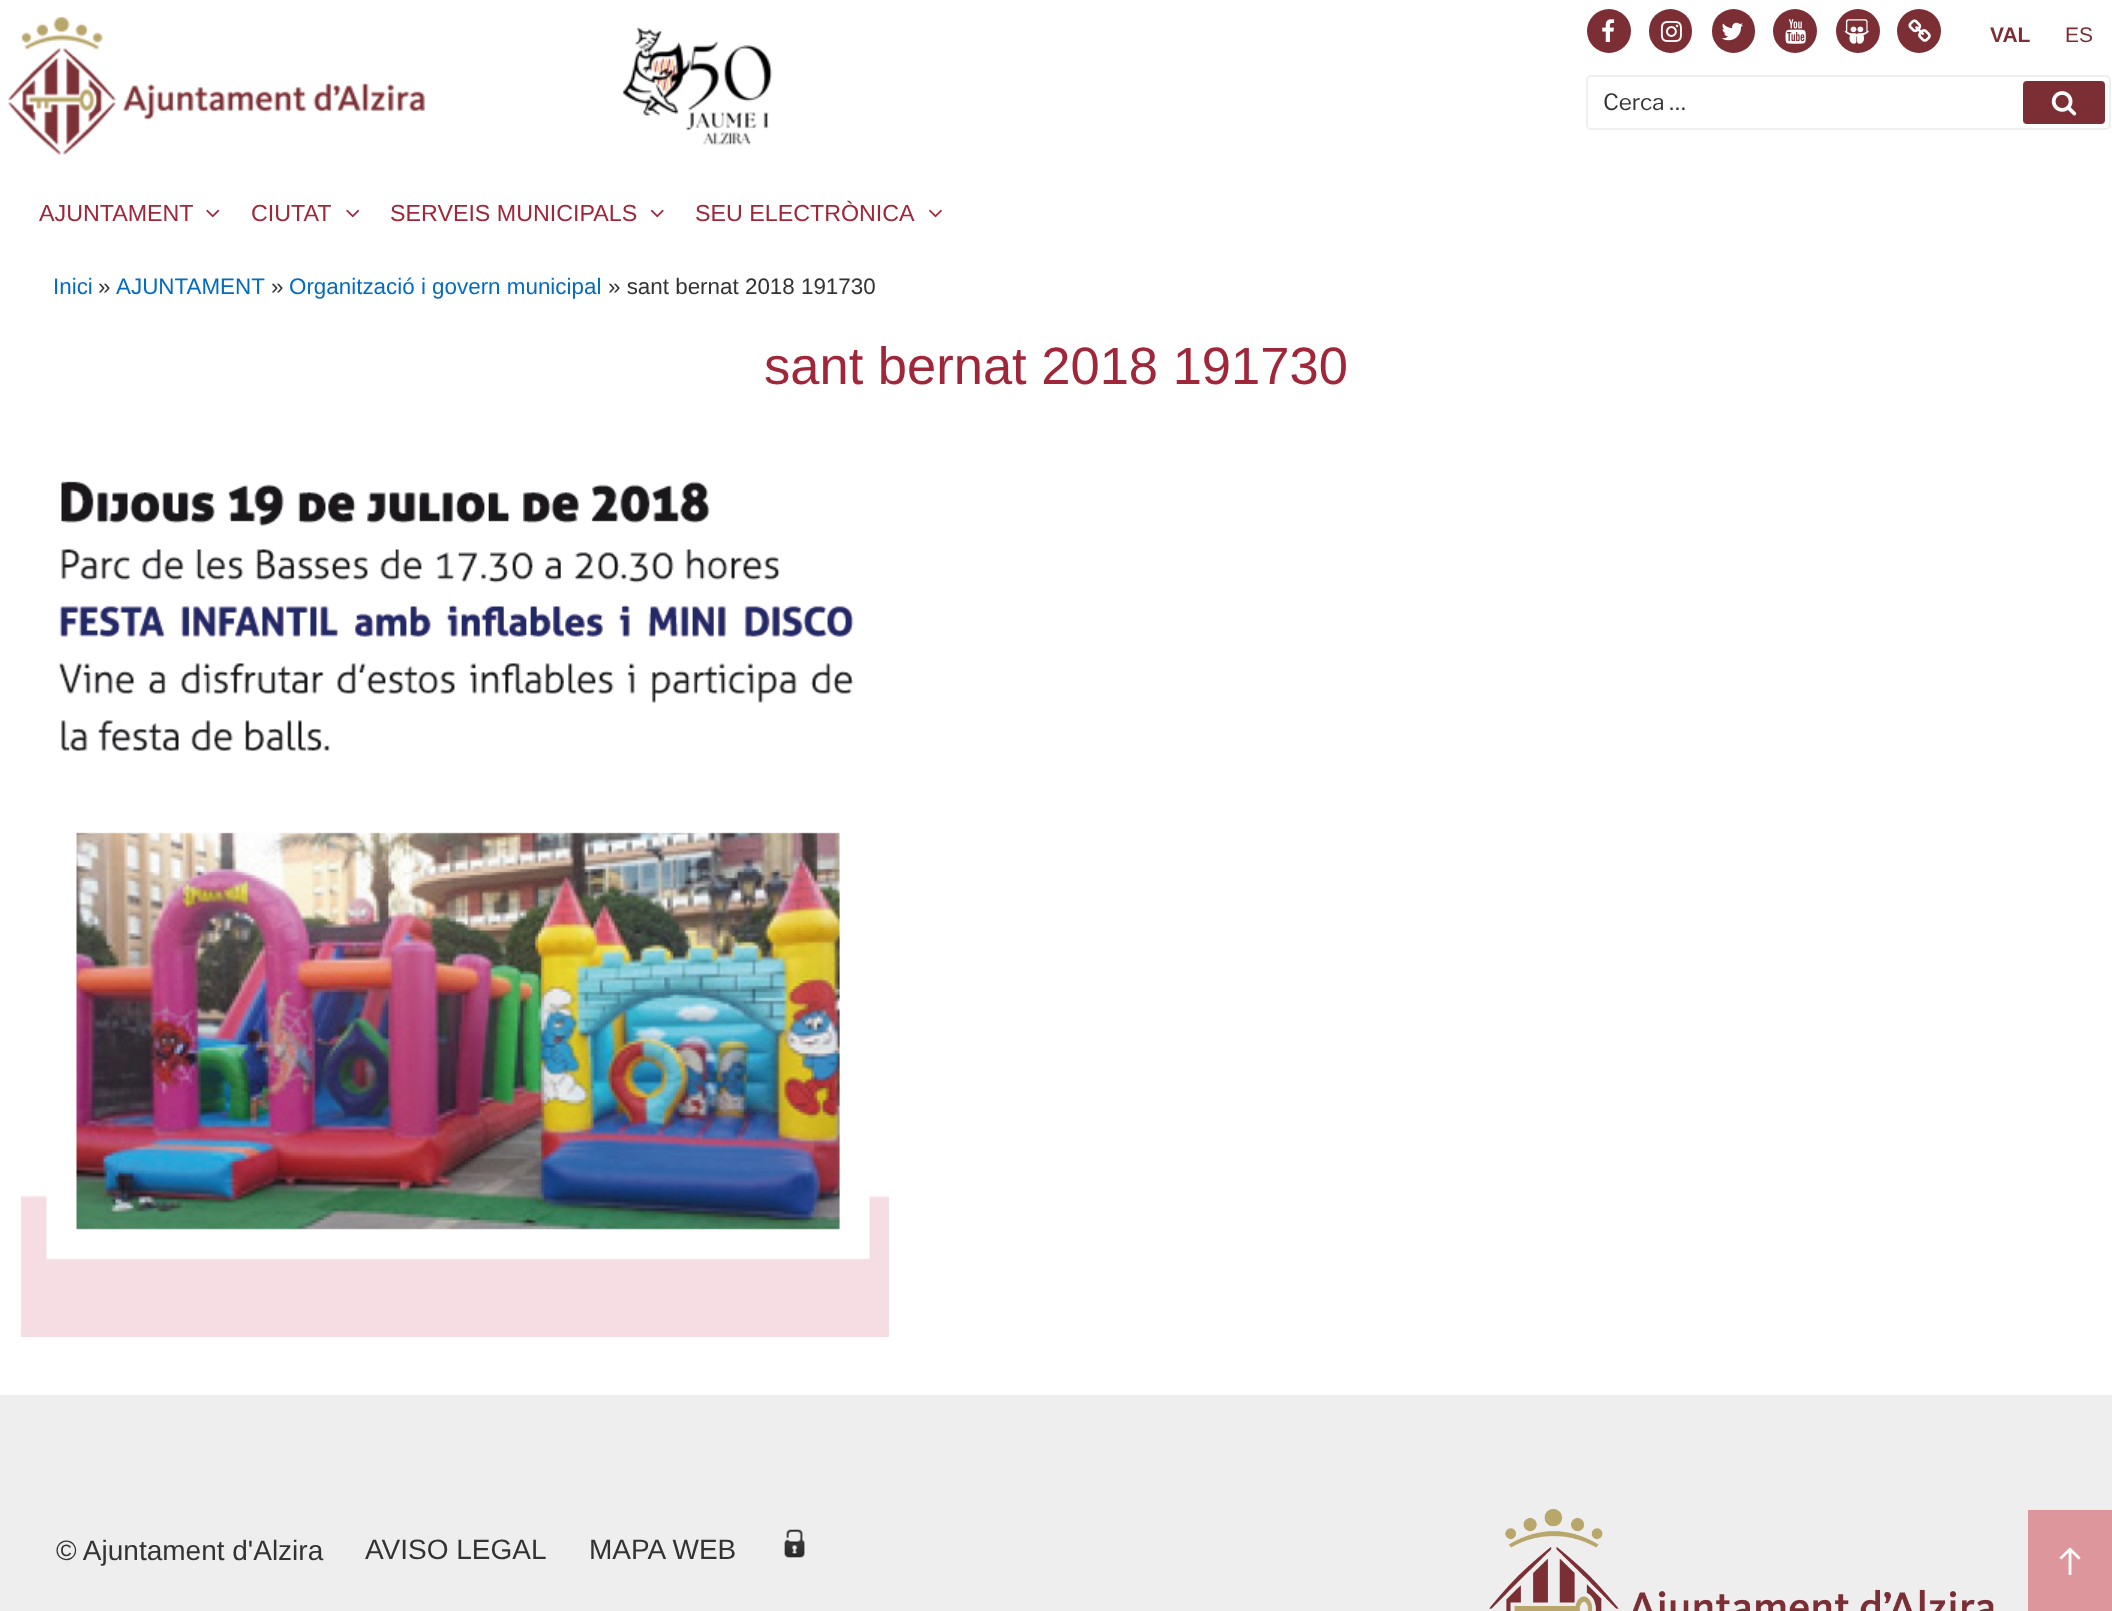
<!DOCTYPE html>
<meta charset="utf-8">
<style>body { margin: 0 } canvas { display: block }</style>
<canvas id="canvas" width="2112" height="1611"></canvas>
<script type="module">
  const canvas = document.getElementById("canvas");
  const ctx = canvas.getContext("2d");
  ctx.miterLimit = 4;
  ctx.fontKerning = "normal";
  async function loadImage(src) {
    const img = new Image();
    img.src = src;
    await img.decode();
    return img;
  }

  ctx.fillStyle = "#ffffff";
  ctx.fillRect(0, 0, 2112, 1611);
  ctx.drawImage(await loadImage("img1.png"), 8, 17, 765, 138);
  ctx.fillStyle = "#7b2f35";
  ctx.beginPath();
  ctx.arc(1609, 31, 22, 0, Math.PI * 2);
  ctx.fill();
  ctx.drawImage(await loadImage("img2.png"), 1602, 19, 13, 23);
  ctx.beginPath();
  ctx.roundRect(1649, 9, 43, 44, 21.5);
  ctx.fill();
  ctx.drawImage(await loadImage("img3.png"), 1660, 21, 22, 21);
  ctx.beginPath();
  ctx.roundRect(1712, 9, 43, 44, 21.5);
  ctx.fill();
  ctx.drawImage(await loadImage("img4.png"), 1721, 22, 22, 19);
  ctx.beginPath();
  ctx.arc(1795, 31, 22, 0, Math.PI * 2);
  ctx.fill();
  ctx.drawImage(await loadImage("img5.png"), 1785, 19, 21, 25);
  ctx.beginPath();
  ctx.arc(1858, 31, 22, 0, Math.PI * 2);
  ctx.fill();
  ctx.drawImage(await loadImage("img6.png"), 1844, 19, 25, 25);
  ctx.beginPath();
  ctx.arc(1919, 31, 22, 0, Math.PI * 2);
  ctx.fill();
  ctx.drawImage(await loadImage("img7.png"), 1908, 19, 23, 23);
  ctx.font = "bold 21px Liberation Sans";
  ctx.fillText("VAL", 1990, 42);
  ctx.font = "21px Liberation Sans";
  ctx.fillText("ES", 2065, 42);
  ctx.beginPath();
  ctx.roundRect(1587, 76, 523, 53, 4);
  ctx.strokeStyle = "#efefef";
  ctx.lineWidth = 2;
  ctx.stroke();
  ctx.font = "100 22.4px Libre Franklin";
  ctx.fillStyle = "#333333";
  ctx.fillText("Cerca …", 1603, 110);
  ctx.fillStyle = "#7b2f35";
  ctx.beginPath();
  ctx.roundRect(2023, 81, 82, 43, 4);
  ctx.fill();
  ctx.drawImage(await loadImage("img8.png"), 2051, 91, 26, 25);
  ctx.font = "23.25px Liberation Sans";
  ctx.fillStyle = "#a02739";
  ctx.fillText("AJUNTAMENT", 39, 221);
  ctx.drawImage(await loadImage("img9.png"), 206, 209, 14, 9);
  ctx.fillText("CIUTAT", 251, 221);
  ctx.drawImage(await loadImage("img9.png"), 346, 209, 14, 9);
  ctx.fillText("SERVEIS MUNICIPALS", 390, 221);
  ctx.drawImage(await loadImage("img10.png"), 650, 209, 14, 9);
  ctx.fillText("SEU ELECTRÒNICA", 695, 221);
  ctx.drawImage(await loadImage("img11.png"), 929, 209, 13, 9);
  ctx.font = "22.4px Liberation Sans";
  ctx.fillStyle = "#056bbf";
  ctx.fillText("Inici", 53, 294);
  ctx.fillStyle = "#333333";
  ctx.fillText("»", 98, 294);
  ctx.fillStyle = "#056bbf";
  ctx.fillText("AJUNTAMENT", 116, 294);
  ctx.fillStyle = "#333333";
  ctx.fillText("»", 271, 294);
  ctx.fillStyle = "#056bbf";
  ctx.fillText("Organització i govern municipal", 289, 294);
  ctx.fillStyle = "#333333";
  ctx.fillText("» sant bernat 2018 191730", 608, 294);
  ctx.font = "52.5px Liberation Sans";
  ctx.fillStyle = "#a02739";
  ctx.fillText("sant bernat 2018 191730", 764, 384);
  ctx.drawImage(await loadImage("img12.png"), 21, 481, 868, 856);
  ctx.fillStyle = "#eeeeee";
  ctx.fillRect(0, 1395, 2112, 216);
  ctx.font = "28px Liberation Sans";
  ctx.fillStyle = "#333333";
  ctx.fillText("© Ajuntament d'Alzira", 56, 1560);
  ctx.fillText("AVISO LEGAL", 365, 1559);
  ctx.fillText("MAPA WEB", 589, 1559);
  ctx.drawImage(await loadImage("img13.png"), 784, 1529, 21, 29);
  ctx.drawImage(await loadImage("img14.png"), 1489, 1509, 505, 102);
  ctx.fillStyle = "#dd979c";
  ctx.fillRect(2028, 1510, 84, 101);
  ctx.drawImage(await loadImage("img15.png"), 2059, 1547, 22, 28);
</script>
